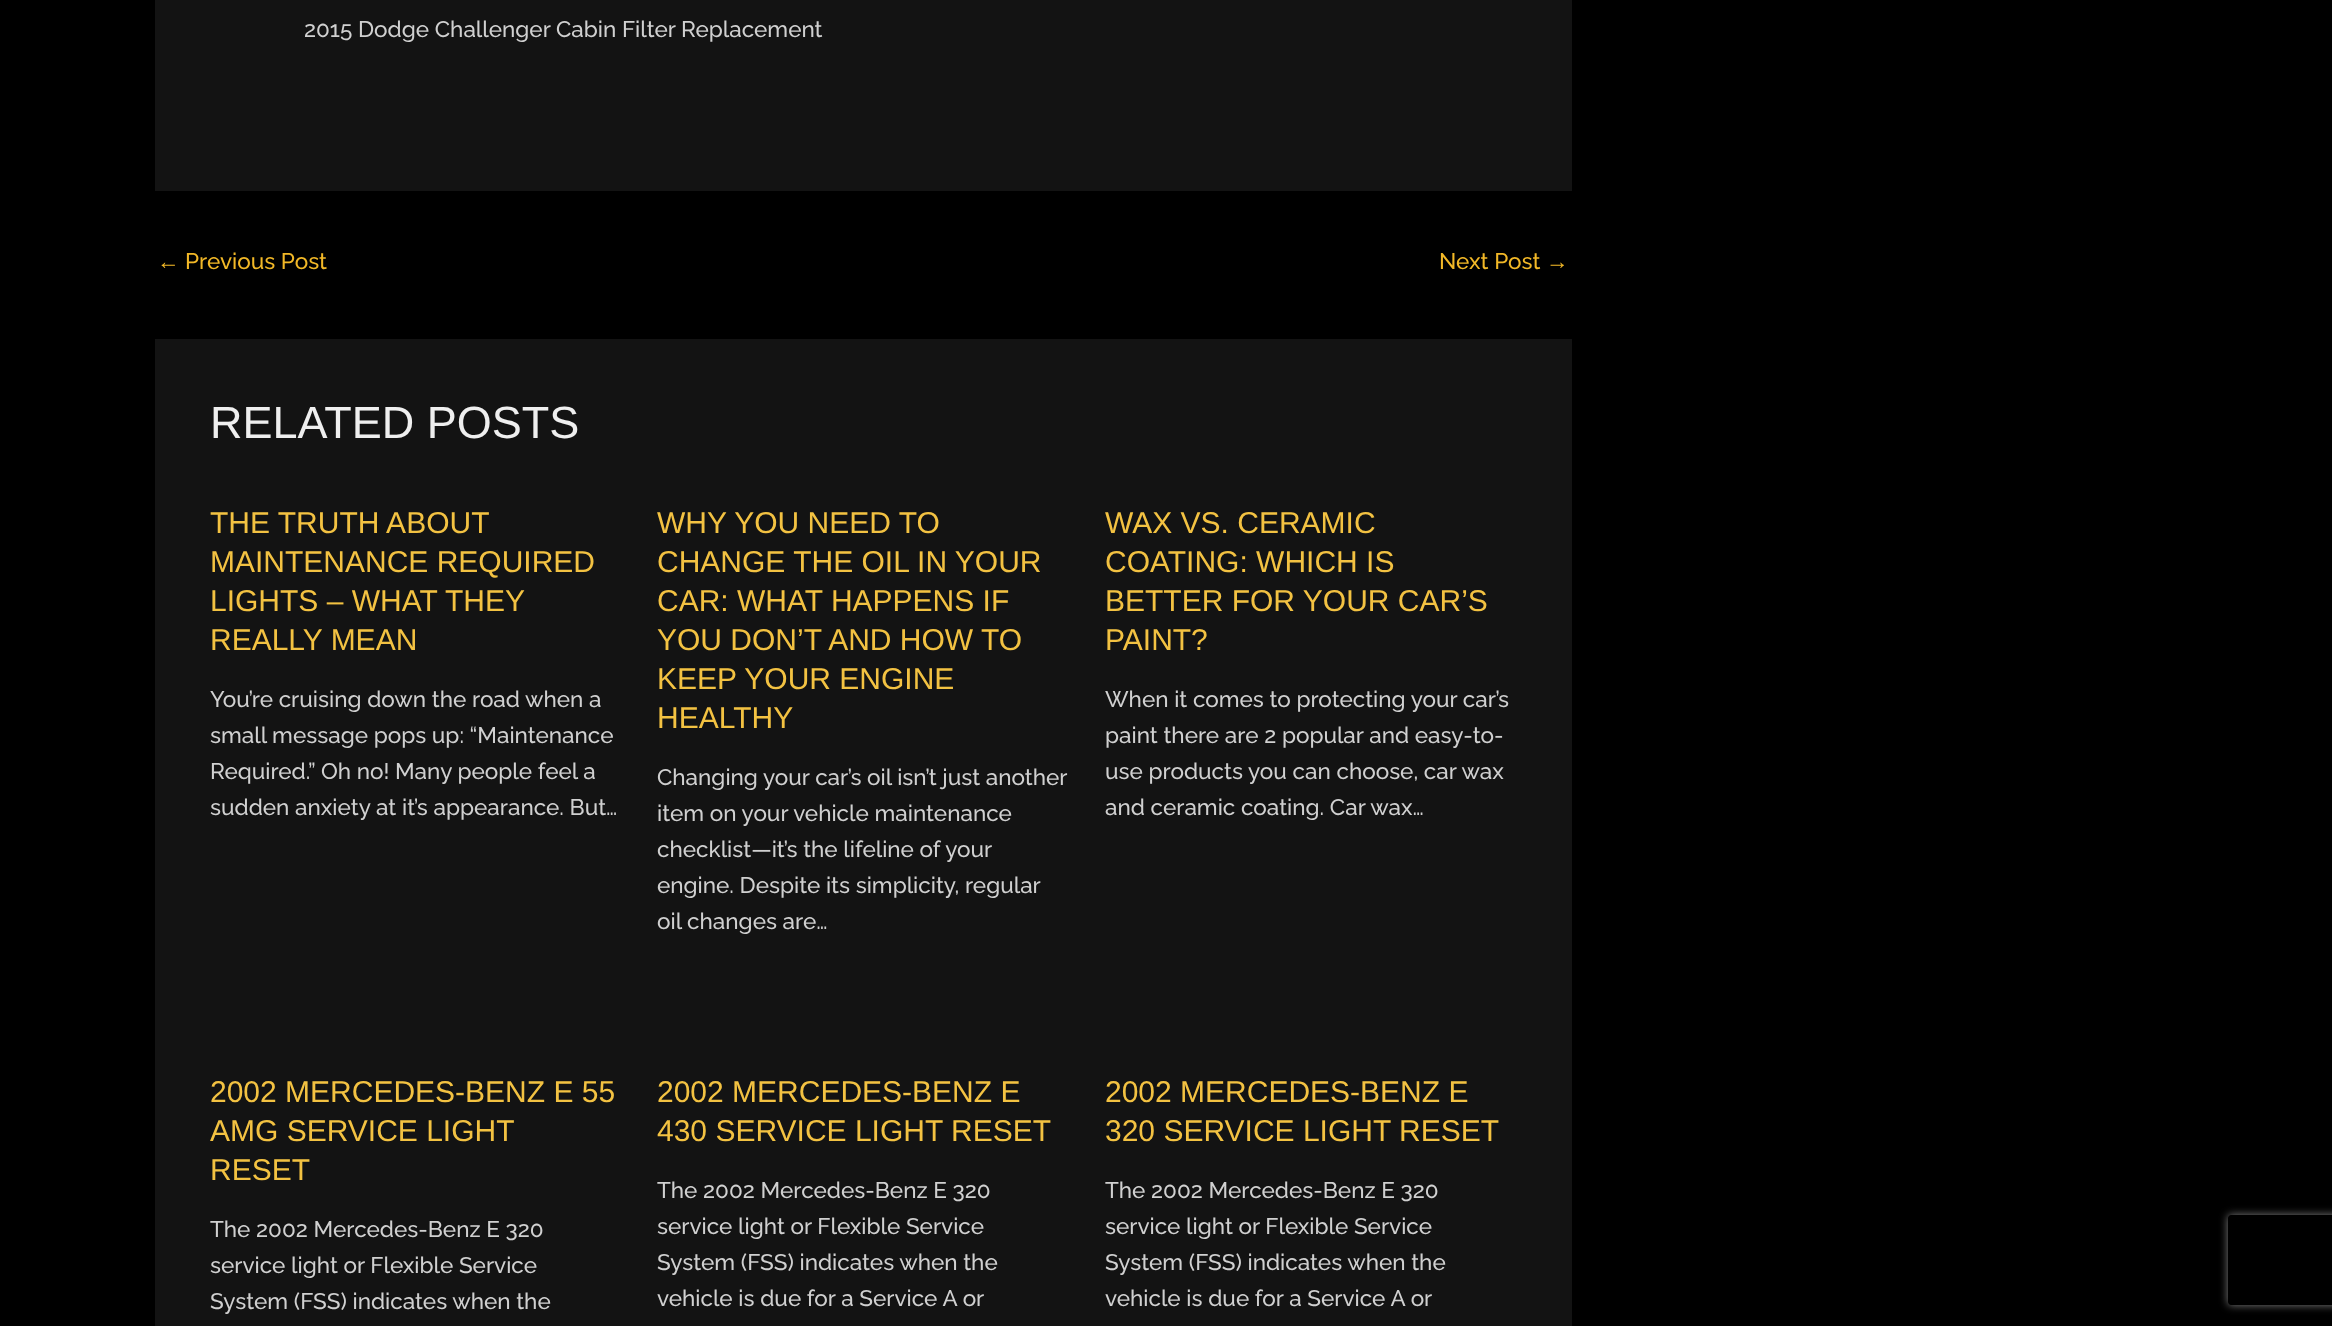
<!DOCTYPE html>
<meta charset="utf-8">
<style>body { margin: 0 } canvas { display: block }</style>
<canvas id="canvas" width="2332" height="1326"></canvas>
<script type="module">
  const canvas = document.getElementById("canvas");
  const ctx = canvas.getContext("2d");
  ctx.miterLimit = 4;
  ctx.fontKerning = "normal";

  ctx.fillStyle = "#000000";
  ctx.fillRect(0, 0, 2332, 1326);
  ctx.fillStyle = "#131313";
  ctx.fillRect(155, 0, 1417, 191);
  ctx.font = "100 22.5px Raleway";
  ctx.fillStyle = "#d0d0d0";
  ctx.fillText("2015 Dodge Challenger Cabin Filter Replacement", 304, 37);
  ctx.font = "22.5px Liberation Sans";
  ctx.fillStyle = "#f2b827";
  ctx.fillText("←", 157, 269);
  ctx.font = "100 22.5px Raleway";
  ctx.fillText("Previous Post", 185, 269);
  ctx.fillText("Next Post", 1439, 269);
  ctx.font = "22.5px Liberation Sans";
  ctx.fillText("→", 1546, 269);
  ctx.fillStyle = "#131313";
  ctx.fillRect(155, 339, 1417, 987);
  ctx.font = "45px Liberation Sans";
  ctx.fillStyle = "#efefef";
  ctx.fillText("RELATED POSTS", 210, 438);
  ctx.font = "30px Liberation Sans";
  ctx.fillStyle = "#f3c242";
  ctx.fillText("THE TRUTH ABOUT", 210, 533);
  ctx.fillText("MAINTENANCE REQUIRED", 210, 572);
  ctx.fillText("LIGHTS – WHAT THEY", 210, 611);
  ctx.fillText("REALLY MEAN", 210, 650);
  ctx.font = "100 22.5px Raleway";
  ctx.fillStyle = "#d0d0d0";
  ctx.fillText("You’re cruising down the road when a", 210, 707);
  ctx.fillText("small message pops up: “Maintenance", 210, 743);
  ctx.fillText("Required.” Oh no! Many people feel a", 210, 779);
  ctx.fillText("sudden anxiety at it’s appearance. But…", 210, 815);
  ctx.font = "30px Liberation Sans";
  ctx.fillStyle = "#f3c242";
  ctx.fillText("WHY YOU NEED TO", 657, 533);
  ctx.fillText("CHANGE THE OIL IN YOUR", 657, 572);
  ctx.fillText("CAR: WHAT HAPPENS IF", 657, 611);
  ctx.fillText("YOU DON’T AND HOW TO", 657, 650);
  ctx.fillText("KEEP YOUR ENGINE", 657, 689);
  ctx.fillText("HEALTHY", 657, 728);
  ctx.font = "100 22.5px Raleway";
  ctx.fillStyle = "#d0d0d0";
  ctx.fillText("Changing your car’s oil isn’t just another", 657, 785);
  ctx.fillText("item on your vehicle maintenance", 657, 821);
  ctx.fillText("checklist—it’s the lifeline of your", 657, 857);
  ctx.fillText("engine. Despite its simplicity, regular", 657, 893);
  ctx.fillText("oil changes are…", 657, 929);
  ctx.font = "30px Liberation Sans";
  ctx.fillStyle = "#f3c242";
  ctx.fillText("WAX VS. CERAMIC", 1105, 533);
  ctx.fillText("COATING: WHICH IS", 1105, 572);
  ctx.fillText("BETTER FOR YOUR CAR’S", 1105, 611);
  ctx.fillText("PAINT?", 1105, 650);
  ctx.font = "100 22.5px Raleway";
  ctx.fillStyle = "#d0d0d0";
  ctx.fillText("When it comes to protecting your car’s", 1105, 707);
  ctx.fillText("paint there are 2 popular and easy-to-", 1105, 743);
  ctx.fillText("use products you can choose, car wax", 1105, 779);
  ctx.fillText("and ceramic coating. Car wax…", 1105, 815);
  ctx.font = "30px Liberation Sans";
  ctx.fillStyle = "#f3c242";
  ctx.fillText("2002 MERCEDES-BENZ E 55", 210, 1102);
  ctx.fillText("AMG SERVICE LIGHT", 210, 1141);
  ctx.fillText("RESET", 210, 1180);
  ctx.font = "100 22.5px Raleway";
  ctx.fillStyle = "#d0d0d0";
  ctx.fillText("The 2002 Mercedes-Benz E 320", 210, 1237);
  ctx.fillText("service light or Flexible Service", 210, 1273);
  ctx.fillText("System (FSS) indicates when the", 210, 1309);
  ctx.font = "30px Liberation Sans";
  ctx.fillStyle = "#f3c242";
  ctx.fillText("2002 MERCEDES-BENZ E", 657, 1102);
  ctx.fillText("430 SERVICE LIGHT RESET", 657, 1141);
  ctx.font = "100 22.5px Raleway";
  ctx.fillStyle = "#d0d0d0";
  ctx.fillText("The 2002 Mercedes-Benz E 320", 657, 1198);
  ctx.fillText("service light or Flexible Service", 657, 1234);
  ctx.fillText("System (FSS) indicates when the", 657, 1270);
  ctx.fillText("vehicle is due for a Service A or", 657, 1306);
  ctx.font = "30px Liberation Sans";
  ctx.fillStyle = "#f3c242";
  ctx.fillText("2002 MERCEDES-BENZ E", 1105, 1102);
  ctx.fillText("320 SERVICE LIGHT RESET", 1105, 1141);
  ctx.font = "100 22.5px Raleway";
  ctx.fillStyle = "#d0d0d0";
  ctx.fillText("The 2002 Mercedes-Benz E 320", 1105, 1198);
  ctx.fillText("service light or Flexible Service", 1105, 1234);
  ctx.fillText("System (FSS) indicates when the", 1105, 1270);
  ctx.fillText("vehicle is due for a Service A or", 1105, 1306);
  ctx.save();
  ctx.beginPath();
  ctx.moveTo(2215, 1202);
  ctx.lineTo(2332, 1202);
  ctx.lineTo(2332, 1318);
  ctx.lineTo(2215, 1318);
  ctx.closePath();
  ctx.moveTo(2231, 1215);
  ctx.lineTo(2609, 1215);
  ctx.bezierCurveTo(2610.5, 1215, 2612, 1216.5, 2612, 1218);
  ctx.lineTo(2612, 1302);
  ctx.bezierCurveTo(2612, 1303.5, 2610.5, 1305, 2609, 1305);
  ctx.lineTo(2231, 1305);
  ctx.bezierCurveTo(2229.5, 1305, 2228, 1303.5, 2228, 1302);
  ctx.lineTo(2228, 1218);
  ctx.bezierCurveTo(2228, 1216.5, 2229.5, 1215, 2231, 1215);
  ctx.closePath();
  ctx.clip("evenodd");
  ctx.fillStyle = "#808080";
  ctx.filter = "blur(4px)";
  ctx.beginPath();
  ctx.roundRect(2228, 1215, 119, 90, 3);
  ctx.fill();
  ctx.filter = "none";
  ctx.restore();
</script>
